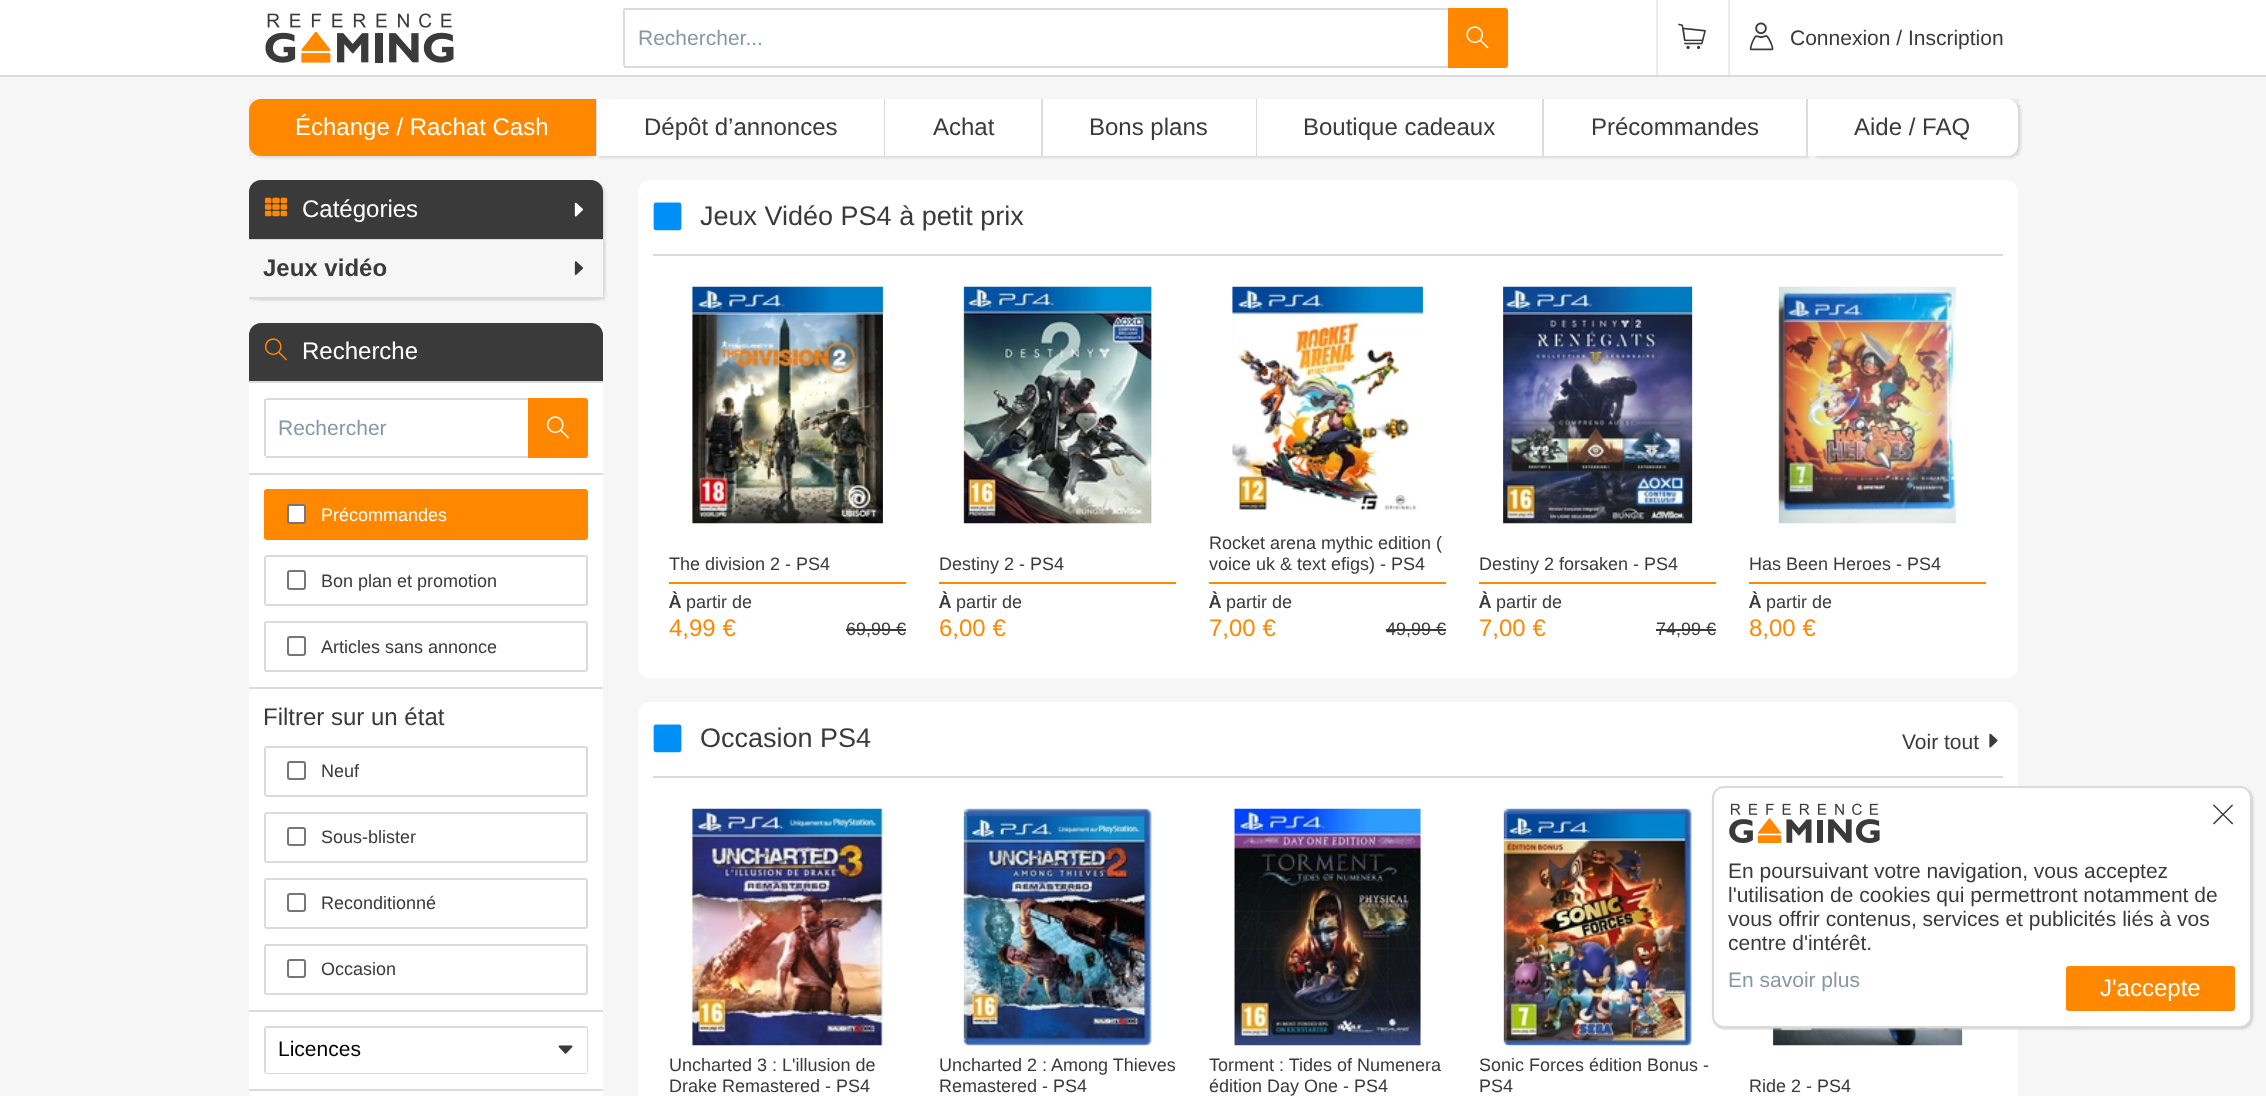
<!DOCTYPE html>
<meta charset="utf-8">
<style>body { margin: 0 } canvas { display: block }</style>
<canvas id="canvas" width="2266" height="1096"></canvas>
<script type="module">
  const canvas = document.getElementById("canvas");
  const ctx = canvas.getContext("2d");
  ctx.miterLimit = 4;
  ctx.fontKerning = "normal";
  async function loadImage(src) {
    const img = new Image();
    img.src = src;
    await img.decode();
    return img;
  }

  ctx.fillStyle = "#f6f6f6";
  ctx.fillRect(0, 0, 2266, 1096);
  ctx.fillStyle = "#ffffff";
  ctx.fillRect(0, 0, 2266, 75);
  ctx.fillStyle = "#dbdbdb";
  ctx.fillRect(0, 75, 2266, 2);
  ctx.drawImage(await loadImage("img1.png"), 265, 13, 189, 50);
  ctx.fillRect(624, 8, 824, 2);
  ctx.fillRect(624, 66, 824, 2);
  ctx.fillRect(623, 9, 2, 57);
  ctx.font = "21px Liberation Sans";
  ctx.fillStyle = "#8599a5";
  ctx.fillText("Rechercher...", 638, 45);
  ctx.fillStyle = "#ff8800";
  ctx.beginPath();
  ctx.roundRect(1449, 9, 58, 58, [0, 2, 2, 0]);
  ctx.fill();
  ctx.strokeStyle = "#ff8800";
  ctx.lineWidth = 2;
  ctx.stroke();
  ctx.drawImage(await loadImage("img2.png"), 1466, 26, 23, 23);
  ctx.fillStyle = "#ebebeb";
  ctx.fillRect(1656, 0, 2, 75);
  ctx.drawImage(await loadImage("img3.png"), 1678, 23, 28, 26);
  ctx.fillRect(1728, 0, 2, 75);
  ctx.drawImage(await loadImage("img4.png"), 1749, 22, 25, 29);
  ctx.fillStyle = "#3b3a3a";
  ctx.fillText("Connexion / Inscription", 1790, 45);
  ctx.fillStyle = "#ebebeb";
  ctx.fillRect(249, 99, 1770, 57);
  ctx.fillStyle = "#dbdbdb";
  ctx.filter = "blur(1px)";
  ctx.beginPath();
  ctx.roundRect(251, 101, 348, 57, 12);
  ctx.fill();
  ctx.filter = "none";
  ctx.fillStyle = "#ff8800";
  ctx.beginPath();
  ctx.roundRect(249, 99, 347, 57, [12, 0, 0, 12]);
  ctx.fill();
  ctx.fillStyle = "#dbdbdb";
  ctx.fillRect(596, 99, 1, 57);
  ctx.font = "24px Liberation Sans";
  ctx.fillStyle = "#ffffff";
  ctx.fillText("Échange / Rachat Cash", 295, 135);
  ctx.fillStyle = "#dbdbdb";
  ctx.filter = "blur(1px)";
  ctx.beginPath();
  ctx.rect(599, 101, 288, 57);
  ctx.fill();
  ctx.filter = "none";
  ctx.fillStyle = "#ffffff";
  ctx.fillRect(597, 99, 287, 57);
  ctx.fillStyle = "#dbdbdb";
  ctx.fillRect(884, 99, 1, 3);
  ctx.fillStyle = "#3b3a3a";
  ctx.fillText("Dépôt d’annonces", 644, 135);
  ctx.fillStyle = "#dbdbdb";
  ctx.filter = "blur(1px)";
  ctx.beginPath();
  ctx.rect(887, 101, 157, 57);
  ctx.fill();
  ctx.filter = "none";
  ctx.fillStyle = "#ffffff";
  ctx.fillRect(885, 99, 156, 57);
  ctx.fillStyle = "#dbdbdb";
  ctx.fillRect(1041, 99, 2, 3);
  ctx.fillStyle = "#3b3a3a";
  ctx.fillText("Achat", 933, 135);
  ctx.fillStyle = "#dbdbdb";
  ctx.filter = "blur(1px)";
  ctx.beginPath();
  ctx.rect(1044, 101, 215, 57);
  ctx.fill();
  ctx.filter = "none";
  ctx.fillStyle = "#ffffff";
  ctx.fillRect(1043, 99, 213, 57);
  ctx.fillStyle = "#dbdbdb";
  ctx.fillRect(1256, 99, 1, 3);
  ctx.fillStyle = "#3b3a3a";
  ctx.fillText("Bons plans", 1089, 135);
  ctx.fillStyle = "#dbdbdb";
  ctx.filter = "blur(1px)";
  ctx.beginPath();
  ctx.rect(1259, 101, 286, 57);
  ctx.fill();
  ctx.filter = "none";
  ctx.fillStyle = "#ffffff";
  ctx.fillRect(1257, 99, 285, 57);
  ctx.fillStyle = "#dbdbdb";
  ctx.fillRect(1542, 99, 2, 3);
  ctx.fillStyle = "#3b3a3a";
  ctx.fillText("Boutique cadeaux", 1303, 135);
  ctx.fillStyle = "#dbdbdb";
  ctx.filter = "blur(1px)";
  ctx.beginPath();
  ctx.rect(1545, 101, 264, 57);
  ctx.fill();
  ctx.filter = "none";
  ctx.fillStyle = "#ffffff";
  ctx.fillRect(1544, 99, 262, 57);
  ctx.fillStyle = "#dbdbdb";
  ctx.fillRect(1806, 99, 2, 3);
  ctx.fillStyle = "#3b3a3a";
  ctx.fillText("Précommandes", 1591, 135);
  ctx.fillStyle = "#dbdbdb";
  ctx.filter = "blur(1px)";
  ctx.beginPath();
  ctx.roundRect(1809, 101, 212, 57, 12);
  ctx.fill();
  ctx.filter = "none";
  ctx.fillStyle = "#ffffff";
  ctx.beginPath();
  ctx.moveTo(1808, 99);
  ctx.lineTo(2007, 99);
  ctx.bezierCurveTo(2013, 99, 2018, 104, 2018, 111);
  ctx.lineTo(2018, 144);
  ctx.bezierCurveTo(2018, 151, 2013, 156, 2007, 156);
  ctx.lineTo(1808, 156);
  ctx.closePath();
  ctx.fill();
  ctx.fillStyle = "#dbdbdb";
  ctx.fillRect(2018, 105, 2, 45);
  ctx.fillStyle = "#3b3a3a";
  ctx.fillText("Aide / FAQ", 1854, 135);
  ctx.fillStyle = "#dbdbdb";
  ctx.filter = "blur(1px)";
  ctx.beginPath();
  ctx.roundRect(251, 182, 354, 118, 12);
  ctx.fill();
  ctx.filter = "none";
  ctx.fillStyle = "#3b3a3a";
  ctx.beginPath();
  ctx.roundRect(249, 180, 354, 59, [12, 12, 0, 0]);
  ctx.fill();
  ctx.fillStyle = "#dbdbdb";
  ctx.fillRect(249, 239, 3, 1);
  ctx.drawImage(await loadImage("img5.png"), 264, 197, 24, 20);
  ctx.fillStyle = "#ffffff";
  ctx.fillText("Catégories", 302, 217);
  ctx.drawImage(await loadImage("img6.png"), 574, 202, 10, 15);
  ctx.fillStyle = "#dbdbdb";
  ctx.filter = "blur(1px)";
  ctx.beginPath();
  ctx.rect(251, 242, 354, 58);
  ctx.fill();
  ctx.filter = "none";
  ctx.fillStyle = "#f6f6f6";
  ctx.fillRect(249, 240, 354, 57);
  ctx.fillStyle = "#dbdbdb";
  ctx.fillRect(249, 297, 4, 2);
  ctx.font = "bold 24px Liberation Sans";
  ctx.fillStyle = "#3b3a3a";
  ctx.fillText("Jeux vidéo", 263, 276);
  ctx.drawImage(await loadImage("img7.png"), 574, 261, 9, 14);
  ctx.fillStyle = "#ffffff";
  ctx.fillRect(249, 323, 354, 773);
  ctx.fillStyle = "#3b3a3a";
  ctx.beginPath();
  ctx.roundRect(249, 323, 354, 58, [12, 12, 0, 0]);
  ctx.fill();
  ctx.fillStyle = "#dbdbdb";
  ctx.fillRect(249, 381, 354, 2);
  ctx.drawImage(await loadImage("img8.png"), 264, 338, 23, 23);
  ctx.font = "24px Liberation Sans";
  ctx.fillStyle = "#ffffff";
  ctx.fillText("Recherche", 302, 359);
  ctx.fillStyle = "#dbdbdb";
  ctx.fillRect(266, 398, 262, 2);
  ctx.fillRect(266, 456, 262, 2);
  ctx.fillRect(264, 399, 2, 57);
  ctx.font = "21px Liberation Sans";
  ctx.fillStyle = "#8599a5";
  ctx.fillText("Rechercher", 278, 435);
  ctx.fillStyle = "#ff8800";
  ctx.beginPath();
  ctx.roundRect(529, 399, 58, 58, [0, 2, 2, 0]);
  ctx.fill();
  ctx.stroke();
  ctx.drawImage(await loadImage("img9.png"), 546, 416, 23, 23);
  ctx.fillStyle = "#dbdbdb";
  ctx.fillRect(249, 473, 354, 2);
  ctx.fillStyle = "#ff8800";
  ctx.beginPath();
  ctx.roundRect(265, 490, 322, 49, 2);
  ctx.fill();
  ctx.stroke();
  ctx.fillStyle = "#ffffff";
  ctx.beginPath();
  ctx.roundRect(288, 505, 17, 18, 2);
  ctx.fill();
  ctx.strokeStyle = "#767676";
  ctx.stroke();
  ctx.font = "18px Liberation Sans";
  ctx.fillText("Précommandes", 321, 521);
  ctx.beginPath();
  ctx.roundRect(265, 556, 322, 49, 2);
  ctx.strokeStyle = "#dbdbdb";
  ctx.stroke();
  ctx.beginPath();
  ctx.roundRect(288, 571, 17, 18, 2);
  ctx.strokeStyle = "#767676";
  ctx.stroke();
  ctx.fillStyle = "#3b3a3a";
  ctx.fillText("Bon plan et promotion", 321, 587);
  ctx.beginPath();
  ctx.roundRect(265, 622, 322, 49, 2);
  ctx.strokeStyle = "#dbdbdb";
  ctx.stroke();
  ctx.beginPath();
  ctx.roundRect(288, 637, 17, 18, 2);
  ctx.strokeStyle = "#767676";
  ctx.stroke();
  ctx.fillText("Articles sans annonce", 321, 653);
  ctx.fillStyle = "#dbdbdb";
  ctx.fillRect(249, 687, 354, 2);
  ctx.font = "24px Liberation Sans";
  ctx.fillStyle = "#3b3a3a";
  ctx.fillText("Filtrer sur un état", 263, 725);
  ctx.beginPath();
  ctx.roundRect(265, 747, 322, 49, 2);
  ctx.strokeStyle = "#dbdbdb";
  ctx.stroke();
  ctx.beginPath();
  ctx.roundRect(288, 762, 17, 17, 2);
  ctx.strokeStyle = "#767676";
  ctx.stroke();
  ctx.font = "18px Liberation Sans";
  ctx.fillText("Neuf", 321, 777);
  ctx.beginPath();
  ctx.roundRect(265, 813, 322, 49, 2);
  ctx.strokeStyle = "#dbdbdb";
  ctx.stroke();
  ctx.beginPath();
  ctx.roundRect(288, 828, 17, 17, 2);
  ctx.strokeStyle = "#767676";
  ctx.stroke();
  ctx.fillText("Sous-blister", 321, 843);
  ctx.beginPath();
  ctx.roundRect(265, 879, 322, 49, 2);
  ctx.strokeStyle = "#dbdbdb";
  ctx.stroke();
  ctx.beginPath();
  ctx.roundRect(288, 894, 17, 17, 2);
  ctx.strokeStyle = "#767676";
  ctx.stroke();
  ctx.fillText("Reconditionné", 321, 909);
  ctx.beginPath();
  ctx.roundRect(265, 945, 322, 49, 2);
  ctx.strokeStyle = "#dbdbdb";
  ctx.stroke();
  ctx.beginPath();
  ctx.roundRect(288, 960, 17, 17, 2);
  ctx.strokeStyle = "#767676";
  ctx.stroke();
  ctx.fillText("Occasion", 321, 975);
  ctx.fillStyle = "#dbdbdb";
  ctx.fillRect(249, 1010, 354, 2);
  ctx.beginPath();
  ctx.roundRect(265, 1027, 322, 46, 2);
  ctx.strokeStyle = "#dbdbdb";
  ctx.stroke();
  ctx.fillStyle = "#ffffff";
  ctx.fillRect(266, 1028, 321, 45);
  ctx.font = "21px Liberation Sans";
  ctx.fillStyle = "#000000";
  ctx.fillText("Licences", 278, 1056);
  ctx.drawImage(await loadImage("img10.png"), 558, 1045, 15, 9);
  ctx.fillStyle = "#dbdbdb";
  ctx.fillRect(249, 1089, 354, 2);
  ctx.fillStyle = "#ffffff";
  ctx.beginPath();
  ctx.roundRect(638, 180, 1380, 498, 12);
  ctx.fill();
  ctx.fillStyle = "#dbdbdb";
  ctx.fillRect(653, 254, 1350, 2);
  ctx.drawImage(await loadImage("img11.png"), 653, 202, 29, 29);
  ctx.font = "27px Liberation Sans";
  ctx.fillStyle = "#3b3a3a";
  ctx.fillText("Jeux Vidéo PS4 à petit prix", 700, 225);
  ctx.drawImage(await loadImage("img12.png"), 692, 286, 191, 238);
  ctx.font = "18px Liberation Sans";
  ctx.fillText("The division 2 - PS4", 669, 570);
  ctx.fillStyle = "#ff8800";
  ctx.fillRect(669, 582, 237, 2);
  ctx.font = "600 18px Noto Sans";
  ctx.fillStyle = "#3b3a3a";
  ctx.fillText("À", 669, 608);
  ctx.font = "18px Liberation Sans";
  ctx.fillText("partir de", 686, 608);
  ctx.font = "24px Liberation Sans";
  ctx.fillStyle = "#ff8800";
  ctx.fillText("4,99 €", 669, 636);
  ctx.font = "18px Liberation Sans";
  ctx.fillStyle = "#3b3a3a";
  ctx.fillText("69,99 €", 846, 635);
  ctx.fillRect(846, 629, 60, 2);
  ctx.drawImage(await loadImage("img13.png"), 963, 286, 189, 238);
  ctx.fillText("Destiny 2 - PS4", 939, 570);
  ctx.fillStyle = "#ff8800";
  ctx.fillRect(939, 582, 237, 2);
  ctx.font = "600 18px Noto Sans";
  ctx.fillStyle = "#3b3a3a";
  ctx.fillText("À", 939, 608);
  ctx.font = "18px Liberation Sans";
  ctx.fillText("partir de", 956, 608);
  ctx.font = "24px Liberation Sans";
  ctx.fillStyle = "#ff8800";
  ctx.fillText("6,00 €", 939, 636);
  ctx.drawImage(await loadImage("img14.png"), 1232, 286, 191, 225);
  ctx.font = "18px Liberation Sans";
  ctx.fillStyle = "#3b3a3a";
  ctx.fillText("Rocket arena mythic edition (", 1209, 549);
  ctx.fillText("voice uk & text efigs) - PS4", 1209, 570);
  ctx.fillStyle = "#ff8800";
  ctx.fillRect(1209, 582, 237, 2);
  ctx.font = "600 18px Noto Sans";
  ctx.fillStyle = "#3b3a3a";
  ctx.fillText("À", 1209, 608);
  ctx.font = "18px Liberation Sans";
  ctx.fillText("partir de", 1226, 608);
  ctx.font = "24px Liberation Sans";
  ctx.fillStyle = "#ff8800";
  ctx.fillText("7,00 €", 1209, 636);
  ctx.font = "18px Liberation Sans";
  ctx.fillStyle = "#3b3a3a";
  ctx.fillText("49,99 €", 1386, 635);
  ctx.fillRect(1386, 629, 60, 2);
  ctx.drawImage(await loadImage("img15.png"), 1503, 286, 190, 238);
  ctx.fillText("Destiny 2 forsaken - PS4", 1479, 570);
  ctx.fillStyle = "#ff8800";
  ctx.fillRect(1479, 582, 237, 2);
  ctx.font = "600 18px Noto Sans";
  ctx.fillStyle = "#3b3a3a";
  ctx.fillText("À", 1479, 608);
  ctx.font = "18px Liberation Sans";
  ctx.fillText("partir de", 1496, 608);
  ctx.font = "24px Liberation Sans";
  ctx.fillStyle = "#ff8800";
  ctx.fillText("7,00 €", 1479, 636);
  ctx.font = "18px Liberation Sans";
  ctx.fillStyle = "#3b3a3a";
  ctx.fillText("74,99 €", 1656, 635);
  ctx.fillRect(1656, 629, 60, 2);
  ctx.drawImage(await loadImage("img16.png"), 1778, 286, 178, 238);
  ctx.fillText("Has Been Heroes - PS4", 1749, 570);
  ctx.fillStyle = "#ff8800";
  ctx.fillRect(1749, 582, 237, 2);
  ctx.font = "600 18px Noto Sans";
  ctx.fillStyle = "#3b3a3a";
  ctx.fillText("À", 1749, 608);
  ctx.font = "18px Liberation Sans";
  ctx.fillText("partir de", 1766, 608);
  ctx.font = "24px Liberation Sans";
  ctx.fillStyle = "#ff8800";
  ctx.fillText("8,00 €", 1749, 636);
  ctx.fillStyle = "#ffffff";
  ctx.beginPath();
  ctx.roundRect(638, 702, 1380, 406, 12);
  ctx.fill();
  ctx.fillStyle = "#dbdbdb";
  ctx.fillRect(653, 776, 1350, 2);
  ctx.drawImage(await loadImage("img11.png"), 653, 724, 29, 29);
  ctx.font = "27px Liberation Sans";
  ctx.fillStyle = "#3b3a3a";
  ctx.fillText("Occasion PS4", 700, 747);
  ctx.font = "21px Liberation Sans";
  ctx.fillText("Voir tout", 1902, 749);
  ctx.drawImage(await loadImage("img17.png"), 1989, 733, 9, 15);
  ctx.drawImage(await loadImage("img18.png"), 692, 808, 191, 238);
  ctx.font = "18px Liberation Sans";
  ctx.fillText("Uncharted 3 : L'illusion de", 669, 1071);
  ctx.fillText("Drake Remastered - PS4", 669, 1092);
  ctx.drawImage(await loadImage("img19.png"), 963, 808, 189, 238);
  ctx.fillText("Uncharted 2 : Among Thieves", 939, 1071);
  ctx.fillText("Remastered - PS4", 939, 1092);
  ctx.drawImage(await loadImage("img20.png"), 1234, 808, 187, 238);
  ctx.fillText("Torment : Tides of Numenera", 1209, 1071);
  ctx.fillText("édition Day One - PS4", 1209, 1092);
  ctx.drawImage(await loadImage("img21.png"), 1503, 808, 189, 238);
  ctx.fillText("Sonic Forces édition Bonus -", 1479, 1071);
  ctx.fillText("PS4", 1479, 1092);
  ctx.drawImage(await loadImage("img22.png"), 1773, 1028, 190, 18);
  ctx.fillText("Ride 2 - PS4", 1749, 1092);
  ctx.fillStyle = "#cbcbcb";
  ctx.filter = "blur(1px)";
  ctx.beginPath();
  ctx.roundRect(1713, 788, 540, 241, 12);
  ctx.fill();
  ctx.filter = "none";
  ctx.fillStyle = "#ffffff";
  ctx.beginPath();
  ctx.roundRect(1713, 787, 538, 240, 11);
  ctx.fill();
  ctx.stroke();
  ctx.drawImage(await loadImage("img23.png"), 1729, 803, 151, 40);
  ctx.drawImage(await loadImage("img24.png"), 2213, 804, 20, 21);
  ctx.font = "21px Liberation Sans";
  ctx.fillStyle = "#3b3a3a";
  ctx.fillText("En poursuivant votre navigation, vous acceptez", 1728, 878);
  ctx.fillText("l'utilisation de cookies qui permettront notamment de", 1728, 902);
  ctx.fillText("vous offrir contenus, services et publicités liés à vos", 1728, 926);
  ctx.fillText("centre d'intérêt.", 1728, 950);
  ctx.fillStyle = "#8599a5";
  ctx.fillText("En savoir plus", 1728, 987);
  ctx.fillStyle = "#ff8800";
  ctx.beginPath();
  ctx.roundRect(2067, 967, 167, 43, 2);
  ctx.fill();
  ctx.strokeStyle = "#ff8800";
  ctx.stroke();
  ctx.font = "24px Liberation Sans";
  ctx.fillStyle = "#ffffff";
  ctx.fillText("J'accepte", 2100, 996);
</script>
